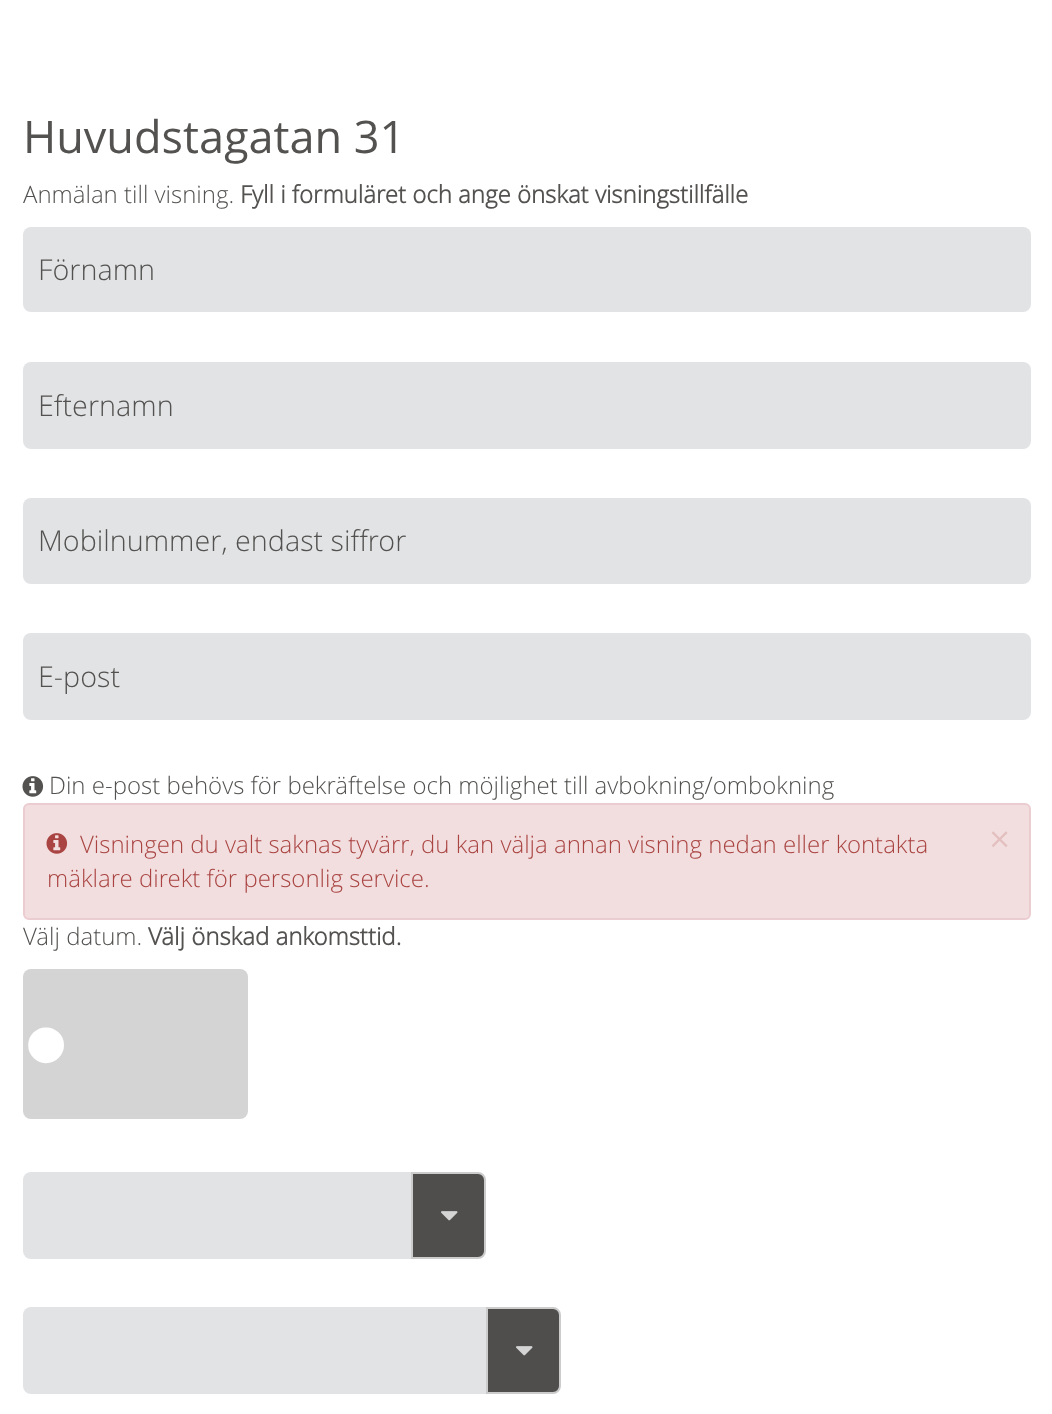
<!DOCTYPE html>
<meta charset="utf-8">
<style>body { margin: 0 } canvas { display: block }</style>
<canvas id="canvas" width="1052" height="1414"></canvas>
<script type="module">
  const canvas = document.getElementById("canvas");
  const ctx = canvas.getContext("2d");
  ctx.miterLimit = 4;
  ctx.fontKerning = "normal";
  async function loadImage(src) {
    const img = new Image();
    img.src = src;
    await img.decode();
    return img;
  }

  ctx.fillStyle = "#ffffff";
  ctx.fillRect(0, 0, 1052, 1414);
  ctx.font = "45px Open Sans";
  ctx.fillStyle = "#535250";
  ctx.fillText("Huvudstagatan 31", 23, 153);
  ctx.font = "300 24px Open Sans";
  ctx.fillText("Anmälan till visning.", 23, 203);
  ctx.font = "bold 24px Open Sans";
  ctx.fillText("Fyll i formuläret och ange önskat visningstillfälle", 240, 203);
  ctx.fillStyle = "#e2e3e5";
  ctx.beginPath();
  ctx.roundRect(23, 227, 1008, 85, 8);
  ctx.fill();
  ctx.font = "300 28.75px Open Sans";
  ctx.fillStyle = "#535250";
  ctx.fillText("Förnamn", 38, 280);
  ctx.fillStyle = "#e2e3e5";
  ctx.beginPath();
  ctx.roundRect(23, 362, 1008, 87, 8);
  ctx.fill();
  ctx.fillStyle = "#535250";
  ctx.fillText("Efternamn", 38, 416);
  ctx.fillStyle = "#e2e3e5";
  ctx.beginPath();
  ctx.roundRect(23, 498, 1008, 86, 8);
  ctx.fill();
  ctx.fillStyle = "#535250";
  ctx.fillText("Mobilnummer, endast siffror", 38, 551);
  ctx.fillStyle = "#e2e3e5";
  ctx.beginPath();
  ctx.roundRect(23, 633, 1008, 87, 8);
  ctx.fill();
  ctx.fillStyle = "#535250";
  ctx.fillText("E-post", 38, 687);
  ctx.drawImage(await loadImage("img1.png"), 22, 776, 22, 21);
  ctx.font = "300 24px Open Sans";
  ctx.fillText("Din e-post behövs för bekräftelse och möjlighet till avbokning/ombokning", 49, 794);
  ctx.fillStyle = "#f2dede";
  ctx.beginPath();
  ctx.roundRect(24, 804, 1006, 115, 5);
  ctx.fill();
  ctx.strokeStyle = "#ebccd1";
  ctx.lineWidth = 2;
  ctx.stroke();
  ctx.drawImage(await loadImage("img2.png"), 46, 833, 22, 21);
  ctx.fillStyle = "#a94442";
  ctx.fillText("Visningen du valt saknas tyvärr, du kan välja annan visning nedan eller kontakta", 80, 853);
  ctx.font = "bold 32px Open Sans";
  ctx.fillStyle = "#e3bfbf";
  ctx.fillText("×", 990, 851);
  ctx.font = "300 24px Open Sans";
  ctx.fillStyle = "#a94442";
  ctx.fillText("mäklare direkt för personlig service.", 47, 887);
  ctx.fillStyle = "#535250";
  ctx.fillText("Välj datum.", 23, 945);
  ctx.font = "bold 24px Open Sans";
  ctx.fillText("Välj önskad ankomsttid.", 148, 945);
  ctx.fillStyle = "#d4d4d4";
  ctx.beginPath();
  ctx.roundRect(23, 969, 225, 150, 8);
  ctx.fill();
  ctx.font = "132px Liberation Sans";
  ctx.fillStyle = "#ffffff";
  ctx.fillText("•", 23, 1089);
  ctx.fillStyle = "#e2e3e5";
  ctx.beginPath();
  ctx.roundRect(23, 1172, 390, 87, [8, 0, 0, 8]);
  ctx.fill();
  ctx.fillStyle = "#4f4e4c";
  ctx.beginPath();
  ctx.roundRect(412, 1173, 73, 85, [0, 7, 7, 0]);
  ctx.fill();
  ctx.strokeStyle = "#cccccc";
  ctx.stroke();
  ctx.drawImage(await loadImage("img3.png"), 441, 1211, 17, 10);
  ctx.fillStyle = "#e2e3e5";
  ctx.beginPath();
  ctx.roundRect(23, 1307, 465, 87, [8, 0, 0, 8]);
  ctx.fill();
  ctx.fillStyle = "#4f4e4c";
  ctx.beginPath();
  ctx.roundRect(487, 1308, 73, 85, [0, 7, 7, 0]);
  ctx.fill();
  ctx.stroke();
  ctx.drawImage(await loadImage("img3.png"), 516, 1346, 17, 10);
</script>
